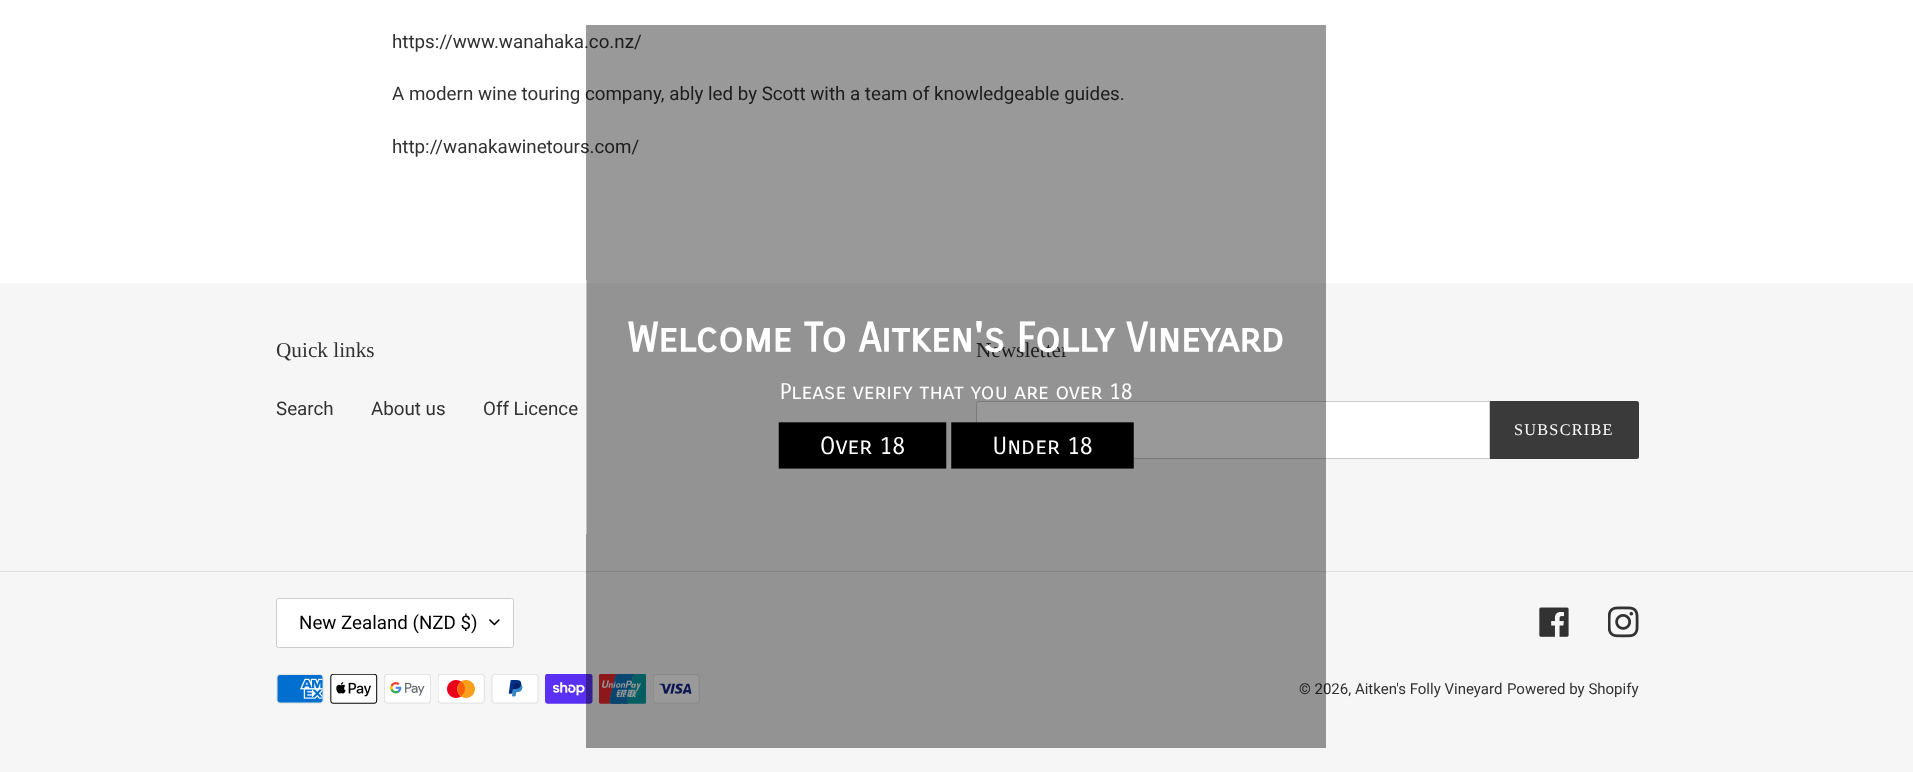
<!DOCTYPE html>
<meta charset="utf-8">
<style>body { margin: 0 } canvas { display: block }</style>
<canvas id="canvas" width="1913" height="772"></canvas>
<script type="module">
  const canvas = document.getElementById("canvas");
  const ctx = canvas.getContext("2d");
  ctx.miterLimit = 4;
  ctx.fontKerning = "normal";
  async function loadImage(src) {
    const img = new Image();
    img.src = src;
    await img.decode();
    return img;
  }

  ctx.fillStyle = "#ffffff";
  ctx.fillRect(0, 0, 1913, 772);
  ctx.font = "18.75px Roboto";
  ctx.fillStyle = "#333232";
  ctx.fillText("https://www.wanahaka.co.nz/", 392, 48);
  ctx.fillText("A modern wine touring company, ably led by Scott with a team of knowledgeable guides.", 392, 100);
  ctx.fillText("http://wanakawinetours.com/", 392, 153);
  ctx.fillStyle = "#f6f6f6";
  ctx.fillRect(0, 283, 1913, 489);
  ctx.font = "21.25px Liberation Serif";
  ctx.fillStyle = "#333232";
  ctx.fillText("Newsletter", 976, 357);
  ctx.fillStyle = "#ffffff";
  ctx.beginPath();
  ctx.roundRect(976.5, 401.5, 513, 57, [2, 0, 0, 2]);
  ctx.fill();
  ctx.strokeStyle = "#cccccc";
  ctx.stroke();
  ctx.fillStyle = "#dddddd";
  ctx.fillRect(0, 571, 1913, 1);
  ctx.drawImage(await loadImage("img10.png"), 545, 674, 48, 30);
  ctx.drawImage(await loadImage("img11.png"), 599, 674, 47, 30);
  ctx.drawImage(await loadImage("img12.png"), 653, 674, 47, 30);
  ctx.font = "15px Roboto";
  ctx.fillStyle = "#333232";
  ctx.fillText("© 2026, Aitken's Folly Vineyard", 1299, 694);
  ctx.drawImage(await loadImage("img1.png"), 586, 25, 740, 723);
  ctx.font = "21.25px Liberation Serif";
  ctx.fillText("Quick links", 276, 357);
  ctx.font = "18.75px Roboto";
  ctx.fillText("Search", 276, 415);
  ctx.fillText("About us", 371, 415);
  ctx.fillText("Off Licence", 483, 415);
  ctx.fillStyle = "#3a3a3a";
  ctx.beginPath();
  ctx.roundRect(1490, 401, 149, 58, [0, 2.5, 2.5, 0]);
  ctx.fill();
  ctx.letterSpacing = "1.25px";
  ctx.font = "16.25px Liberation Serif";
  ctx.fillStyle = "#ffffff";
  ctx.fillText("SUBSCRIBE", 1514, 435);
  ctx.beginPath();
  ctx.roundRect(276, 598, 238, 50, 2.5);
  ctx.fill();
  ctx.drawImage(await loadImage("img2.png"), 489, 619, 11, 7);
  ctx.beginPath();
  ctx.roundRect(276.5, 598.5, 237, 49, 2);
  ctx.stroke();
  ctx.letterSpacing = "0px";
  ctx.font = "18.75px Roboto";
  ctx.fillStyle = "#000000";
  ctx.fillText("New Zealand (NZD $)", 299, 629);
  ctx.drawImage(await loadImage("img3.png"), 1539, 607, 30, 30);
  ctx.drawImage(await loadImage("img4.png"), 1608, 606, 31, 32);
  ctx.drawImage(await loadImage("img5.png"), 276, 674, 48, 30);
  ctx.drawImage(await loadImage("img6.png"), 330, 674, 48, 30);
  ctx.drawImage(await loadImage("img7.png"), 384, 674, 47, 30);
  ctx.drawImage(await loadImage("img8.png"), 438, 674, 47, 30);
  ctx.drawImage(await loadImage("img9.png"), 491, 674, 48, 30);
  ctx.font = "15px Roboto";
  ctx.fillStyle = "#333232";
  ctx.fillText("Powered by Shopify", 1507, 694);
</script>
